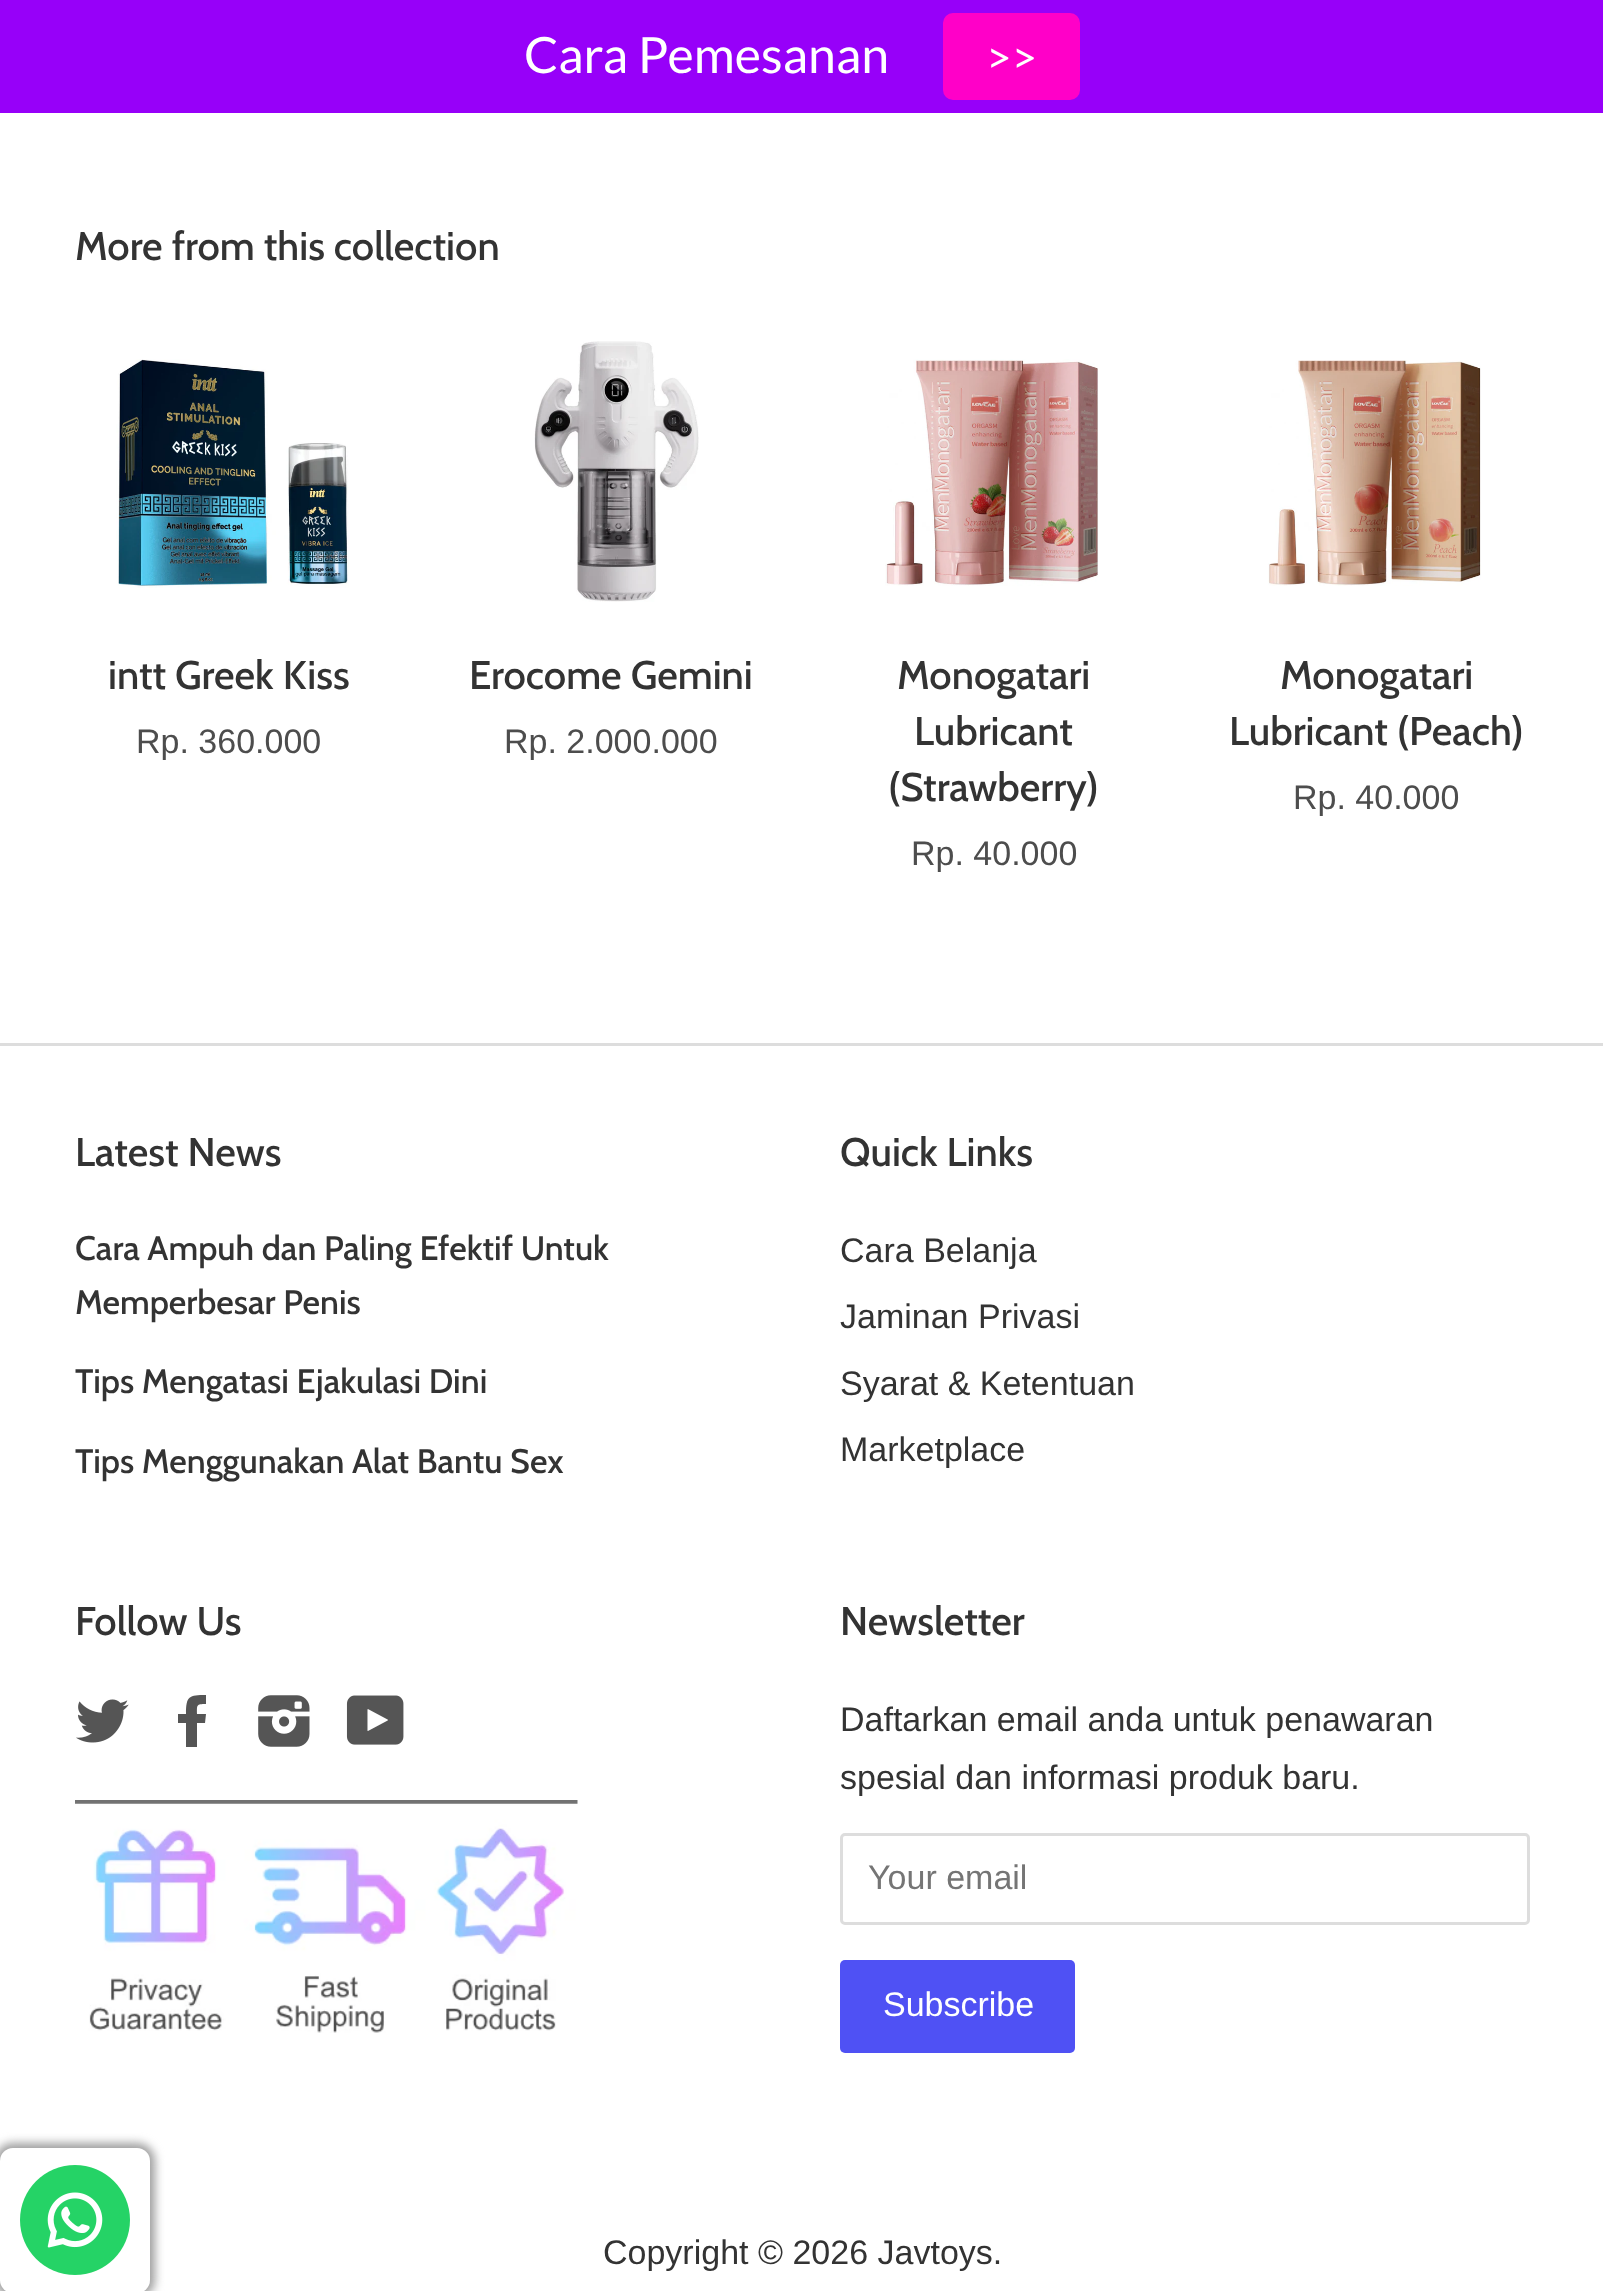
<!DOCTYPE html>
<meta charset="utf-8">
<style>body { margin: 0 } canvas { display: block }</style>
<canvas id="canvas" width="1603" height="2291"></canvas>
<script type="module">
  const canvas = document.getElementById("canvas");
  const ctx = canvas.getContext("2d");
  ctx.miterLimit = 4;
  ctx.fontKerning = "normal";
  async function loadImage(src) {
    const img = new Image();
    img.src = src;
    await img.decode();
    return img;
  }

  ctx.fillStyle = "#ffffff";
  ctx.fillRect(0, 0, 1603, 2291);
  ctx.fillStyle = "#9700f9";
  ctx.fillRect(0, 0, 1603, 113);
  ctx.font = "50px Lato";
  ctx.fillStyle = "#ffffff";
  ctx.fillText("Cara Pemesanan", 524, 73);
  ctx.fillStyle = "#ff00c8";
  ctx.beginPath();
  ctx.roundRect(943, 13, 137, 87, 10);
  ctx.fill();
  ctx.font = "44px Lato";
  ctx.fillStyle = "#ffffff";
  ctx.fillText(">>", 986, 73);
  ctx.font = "500 40px Cabin";
  ctx.fillStyle = "#333333";
  ctx.fillText("More from this collection", 75, 260);
  ctx.drawImage(await loadImage("img1.png"), 116, 359, 233, 229);
  ctx.fillText("intt Greek Kiss", 108, 689);
  ctx.font = "34px Liberation Sans";
  ctx.fillStyle = "#4d4d4d";
  ctx.fillText("Rp. 360.000", 136, 753);
  ctx.drawImage(await loadImage("img2.png"), 534, 341, 165, 261);
  ctx.font = "500 40px Cabin";
  ctx.fillStyle = "#333333";
  ctx.fillText("Erocome Gemini", 469, 689);
  ctx.font = "34px Liberation Sans";
  ctx.fillStyle = "#4d4d4d";
  ctx.fillText("Rp. 2.000.000", 504, 753);
  ctx.drawImage(await loadImage("img3.png"), 885, 359, 213, 227);
  ctx.font = "500 40px Cabin";
  ctx.fillStyle = "#333333";
  ctx.fillText("Monogatari", 897, 689);
  ctx.fillText("Lubricant", 914, 745);
  ctx.fillText("(Strawberry)", 888, 801);
  ctx.font = "34px Liberation Sans";
  ctx.fillStyle = "#4d4d4d";
  ctx.fillText("Rp. 40.000", 911, 865);
  ctx.drawImage(await loadImage("img4.png"), 1268, 360, 213, 226);
  ctx.font = "500 40px Cabin";
  ctx.fillStyle = "#333333";
  ctx.fillText("Monogatari", 1280, 689);
  ctx.fillText("Lubricant (Peach)", 1229, 745);
  ctx.font = "34px Liberation Sans";
  ctx.fillStyle = "#4d4d4d";
  ctx.fillText("Rp. 40.000", 1293, 809);
  ctx.fillStyle = "#dddddd";
  ctx.fillRect(0, 1043, 1603, 3);
  ctx.font = "500 40px Cabin";
  ctx.fillStyle = "#333333";
  ctx.fillText("Latest News", 75, 1166);
  ctx.font = "500 34px Cabin";
  ctx.fillText("Cara Ampuh dan Paling Efektif Untuk", 75, 1260);
  ctx.fillText("Memperbesar Penis", 75, 1314);
  ctx.fillText("Tips Mengatasi Ejakulasi Dini", 75, 1393);
  ctx.fillText("Tips Menggunakan Alat Bantu Sex", 75, 1473);
  ctx.font = "500 40px Cabin";
  ctx.fillText("Quick Links", 840, 1166);
  ctx.font = "34px Liberation Sans";
  ctx.fillText("Cara Belanja", 840, 1262);
  ctx.fillText("Jaminan Privasi", 840, 1328);
  ctx.fillText("Syarat & Ketentuan", 840, 1395);
  ctx.fillText("Marketplace", 840, 1461);
  ctx.font = "500 40px Cabin";
  ctx.fillText("Follow Us", 75, 1635);
  ctx.drawImage(await loadImage("img5.png"), 76, 1699, 53, 44);
  ctx.fillStyle = "#555555";
  ctx.beginPath();
  ctx.moveTo(197, 1747);
  ctx.lineTo(197, 1723);
  ctx.lineTo(205, 1723);
  ctx.lineTo(206, 1714);
  ctx.lineTo(197, 1714);
  ctx.bezierCurveTo(197, 1705, 196, 1704, 206, 1704);
  ctx.lineTo(206, 1695);
  ctx.bezierCurveTo(189, 1695, 186, 1696, 186, 1714);
  ctx.lineTo(178, 1714);
  ctx.lineTo(178, 1723);
  ctx.lineTo(186, 1723);
  ctx.lineTo(186, 1747);
  ctx.closePath();
  ctx.fill();
  ctx.drawImage(await loadImage("img6.png"), 258, 1695, 52, 52);
  ctx.drawImage(await loadImage("img7.png"), 346, 1695, 58, 50);
  ctx.drawImage(await loadImage("img8.png"), 75, 1800, 503, 233);
  ctx.fillStyle = "#333333";
  ctx.fillText("Newsletter", 840, 1635);
  ctx.font = "34px Liberation Sans";
  ctx.fillText("Daftarkan email anda untuk penawaran", 840, 1731);
  ctx.fillText("spesial dan informasi produk baru.", 840, 1789);
  ctx.beginPath();
  ctx.roundRect(841.5, 1834.5, 687, 89, 3.5);
  ctx.strokeStyle = "#dddddd";
  ctx.lineWidth = 3;
  ctx.stroke();
  ctx.fillStyle = "#757575";
  ctx.fillText("Your email", 868, 1889);
  ctx.fillStyle = "#4f51f4";
  ctx.beginPath();
  ctx.roundRect(840, 1960, 235, 93, 5);
  ctx.fill();
  ctx.fillStyle = "#ffffff";
  ctx.fillText("Subscribe", 883, 2016);
  ctx.fillStyle = "#333333";
  ctx.fillText("Copyright © 2026 Javtoys.", 603, 2264);
  ctx.fillStyle = "#9e9e9e";
  ctx.filter = "blur(5px)";
  ctx.beginPath();
  ctx.roundRect(-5, 2143, 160, 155, 18);
  ctx.fill();
  ctx.filter = "none";
  ctx.fillStyle = "#ffffff";
  ctx.beginPath();
  ctx.roundRect(0, 2148, 150, 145, 13);
  ctx.fill();
  ctx.drawImage(await loadImage("img9.png"), 20, 2165, 110, 110);
</script>
